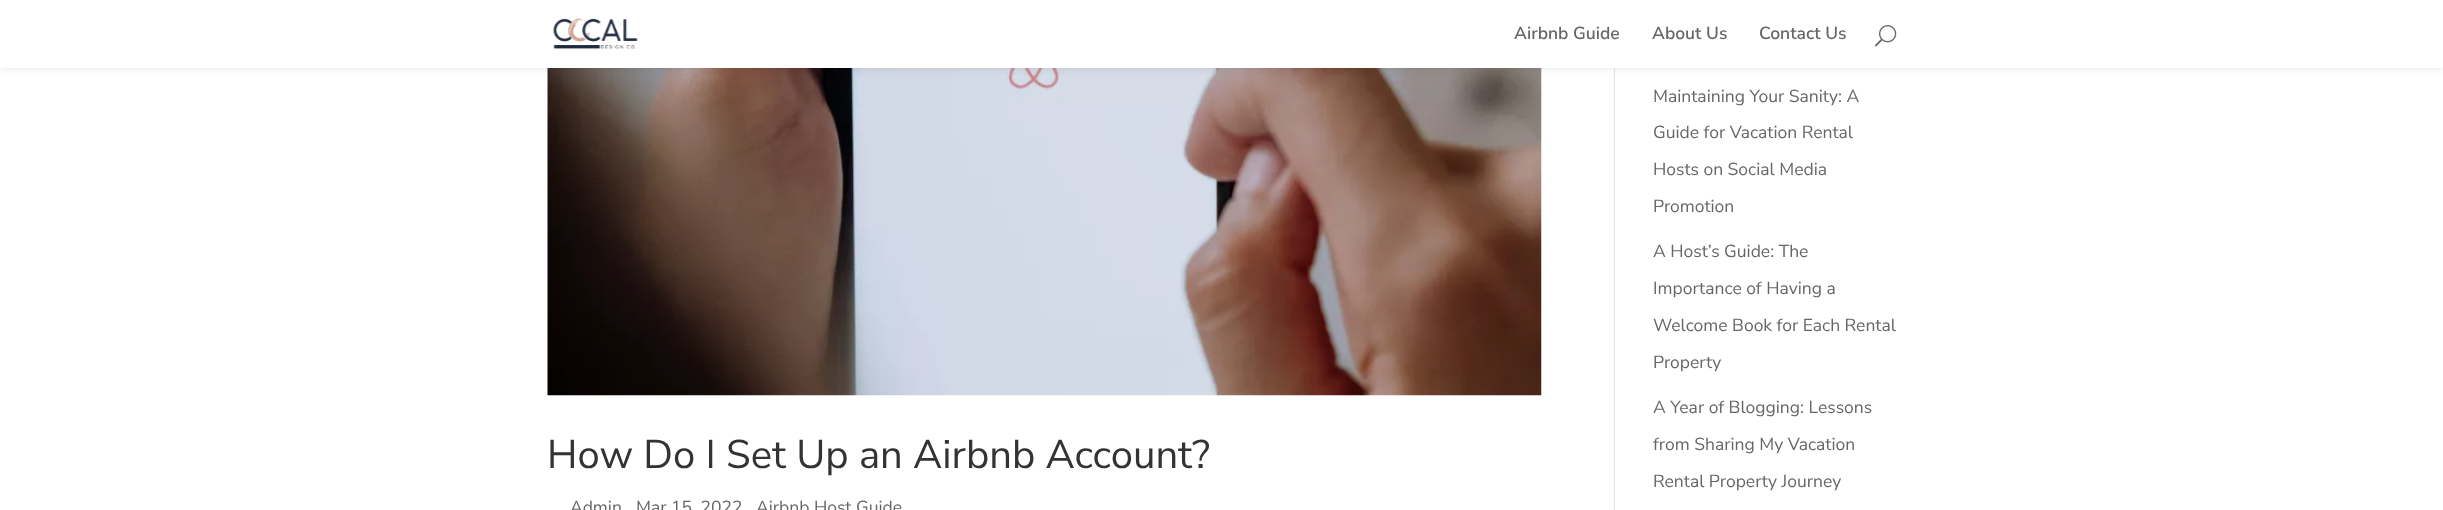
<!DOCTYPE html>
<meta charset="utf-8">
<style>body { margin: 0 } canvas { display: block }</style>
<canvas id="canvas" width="2443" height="510"></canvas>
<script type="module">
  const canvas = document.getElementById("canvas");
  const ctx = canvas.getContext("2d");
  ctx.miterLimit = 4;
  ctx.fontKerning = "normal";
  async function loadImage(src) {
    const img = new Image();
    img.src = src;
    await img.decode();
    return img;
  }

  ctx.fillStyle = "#ffffff";
  ctx.fillRect(0, 0, 2443, 510);
  ctx.fillStyle = "#e2e2e2";
  ctx.fillRect(1614, 68, 1, 442);
  ctx.drawImage(await loadImage("img3.png"), 547, 68, 995, 328);
  ctx.fillStyle = "rgba(0, 0, 0, 0.1)";
  ctx.filter = "blur(4.5px)";
  ctx.beginPath();
  ctx.rect(0, 0, 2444, 68);
  ctx.fill();
  ctx.filter = "none";
  ctx.fillStyle = "#ffffff";
  ctx.fillRect(0, 0, 2443, 68);
  ctx.drawImage(await loadImage("img1.png"), 553, 18, 85, 32);
  ctx.font = "600 17.5px Nunito Sans";
  ctx.fillStyle = "#666666";
  ctx.fillText("Airbnb Guide", 1514, 39);
  ctx.fillText("About Us", 1652, 39);
  ctx.fillText("Contact Us", 1759, 39);
  ctx.drawImage(await loadImage("img2.png"), 1875, 25, 22, 22);
  ctx.font = "40px Nunito Sans";
  ctx.fillStyle = "#333333";
  ctx.fillText("How Do I Set Up an Airbnb Account?", 547, 468);
  ctx.font = "17.5px Nunito Sans";
  ctx.fillStyle = "#666666";
  ctx.fillText("Admin", 570, 513);
  ctx.fillText("Mar 15, 2022", 636, 513);
  ctx.fillText("Airbnb Host Guide", 756, 513);
  ctx.fillText("Maintaining Your Sanity: A", 1653, 102);
  ctx.fillText("Guide for Vacation Rental", 1653, 138);
  ctx.fillText("Hosts on Social Media", 1653, 175);
  ctx.fillText("Promotion", 1653, 212);
  ctx.fillText("A Host’s Guide: The", 1653, 257);
  ctx.fillText("Importance of Having a", 1653, 294);
  ctx.fillText("Welcome Book for Each Rental", 1653, 331);
  ctx.fillText("Property", 1653, 368);
  ctx.fillText("A Year of Blogging: Lessons", 1653, 413);
  ctx.fillText("from Sharing My Vacation", 1653, 450);
  ctx.fillText("Rental Property Journey", 1653, 487);
</script>
